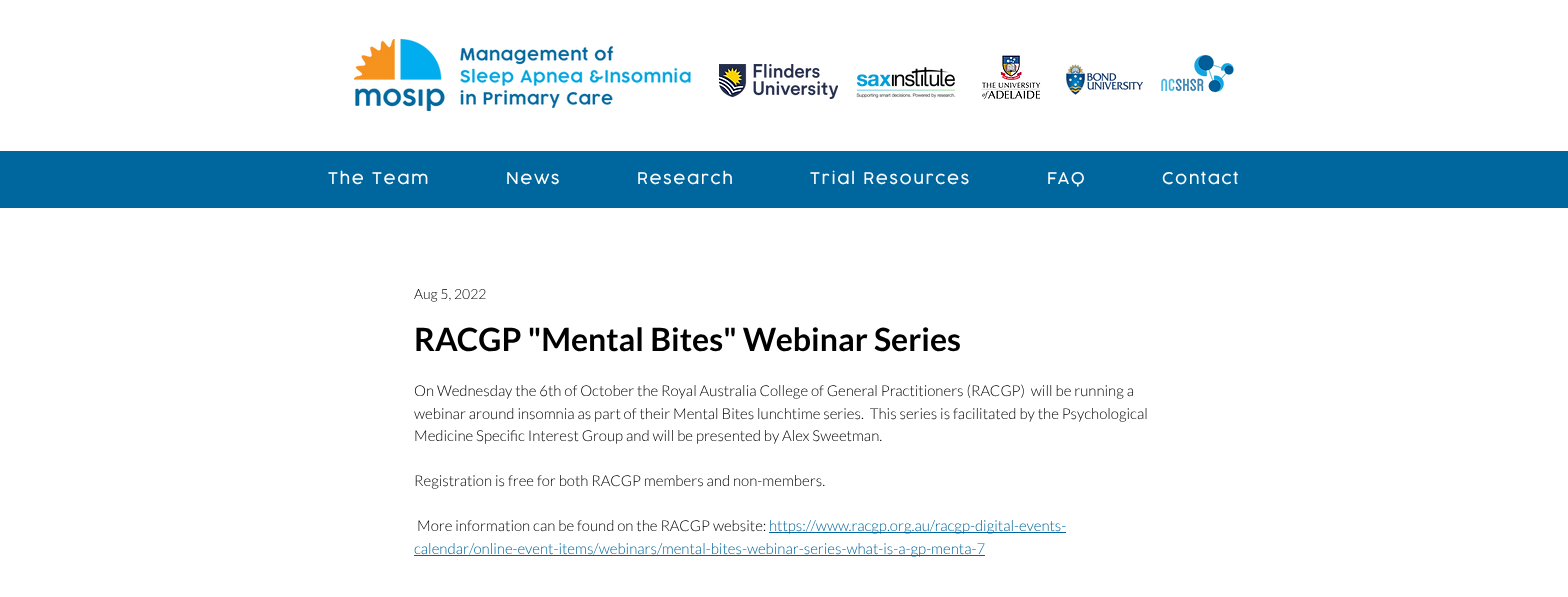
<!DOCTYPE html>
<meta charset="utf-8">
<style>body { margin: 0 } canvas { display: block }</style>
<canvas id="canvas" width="1568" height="597"></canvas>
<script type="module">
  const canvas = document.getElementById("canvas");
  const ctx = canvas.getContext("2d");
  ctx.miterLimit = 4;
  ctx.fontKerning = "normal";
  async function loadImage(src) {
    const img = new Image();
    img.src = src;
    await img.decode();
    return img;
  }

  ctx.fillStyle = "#ffffff";
  ctx.fillRect(0, 0, 1568, 597);
  ctx.drawImage(await loadImage("img1.png"), 354, 39, 337, 72);
  ctx.drawImage(await loadImage("img2.png"), 719, 64, 119, 35);
  ctx.drawImage(await loadImage("img3.png"), 856, 67, 100, 31);
  ctx.drawImage(await loadImage("img4.png"), 982, 55, 59, 46);
  ctx.drawImage(await loadImage("img5.png"), 1066, 64, 77, 31);
  ctx.drawImage(await loadImage("img6.png"), 1161, 54, 73, 39);
  ctx.fillStyle = "#00679e";
  ctx.fillRect(0, 151, 1568, 57);
  ctx.letterSpacing = "1.6px";
  ctx.font = "300 16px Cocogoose";
  ctx.fillStyle = "#ffffff";
  ctx.fillText("The Team", 328, 184);
  ctx.fillText("News", 506, 184);
  ctx.fillText("Research", 637, 184);
  ctx.fillText("Trial Resources", 810, 184);
  ctx.fillText("FAQ", 1047, 184);
  ctx.fillText("Contact", 1162, 184);
  ctx.letterSpacing = "0px";
  ctx.font = "300 14px Lato";
  ctx.fillStyle = "#000000";
  ctx.fillText("Aug 5, 2022", 414, 299);
  ctx.font = "bold 32px Lato";
  ctx.fillText("RACGP \"Mental Bites\" Webinar Series", 414, 351);
  ctx.font = "300 15px Lato";
  ctx.fillText("On Wednesday the 6th of October the Royal Australia College of General Practitioners (RACGP)  will be running a", 414, 396);
  ctx.fillText("webinar around insomnia as part of their Mental Bites lunchtime series.  This series is facilitated by the Psychological", 414, 419);
  ctx.fillText("Medicine Specific Interest Group and will be presented by Alex Sweetman.", 414, 441);
  ctx.fillText("Registration is free for both RACGP members and non-members.", 414, 486);
  ctx.fillText("More information can be found on the RACGP website:", 417, 531);
  ctx.fillStyle = "#00679e";
  ctx.fillRect(769, 532, 297, 1);
  ctx.fillText("https://www.racgp.org.au/racgp-digital-events-", 769, 531);
  ctx.fillRect(414, 555, 571, 1);
  ctx.fillText("calendar/online-event-items/webinars/mental-bites-webinar-series-what-is-a-gp-menta-7", 414, 554);
</script>
